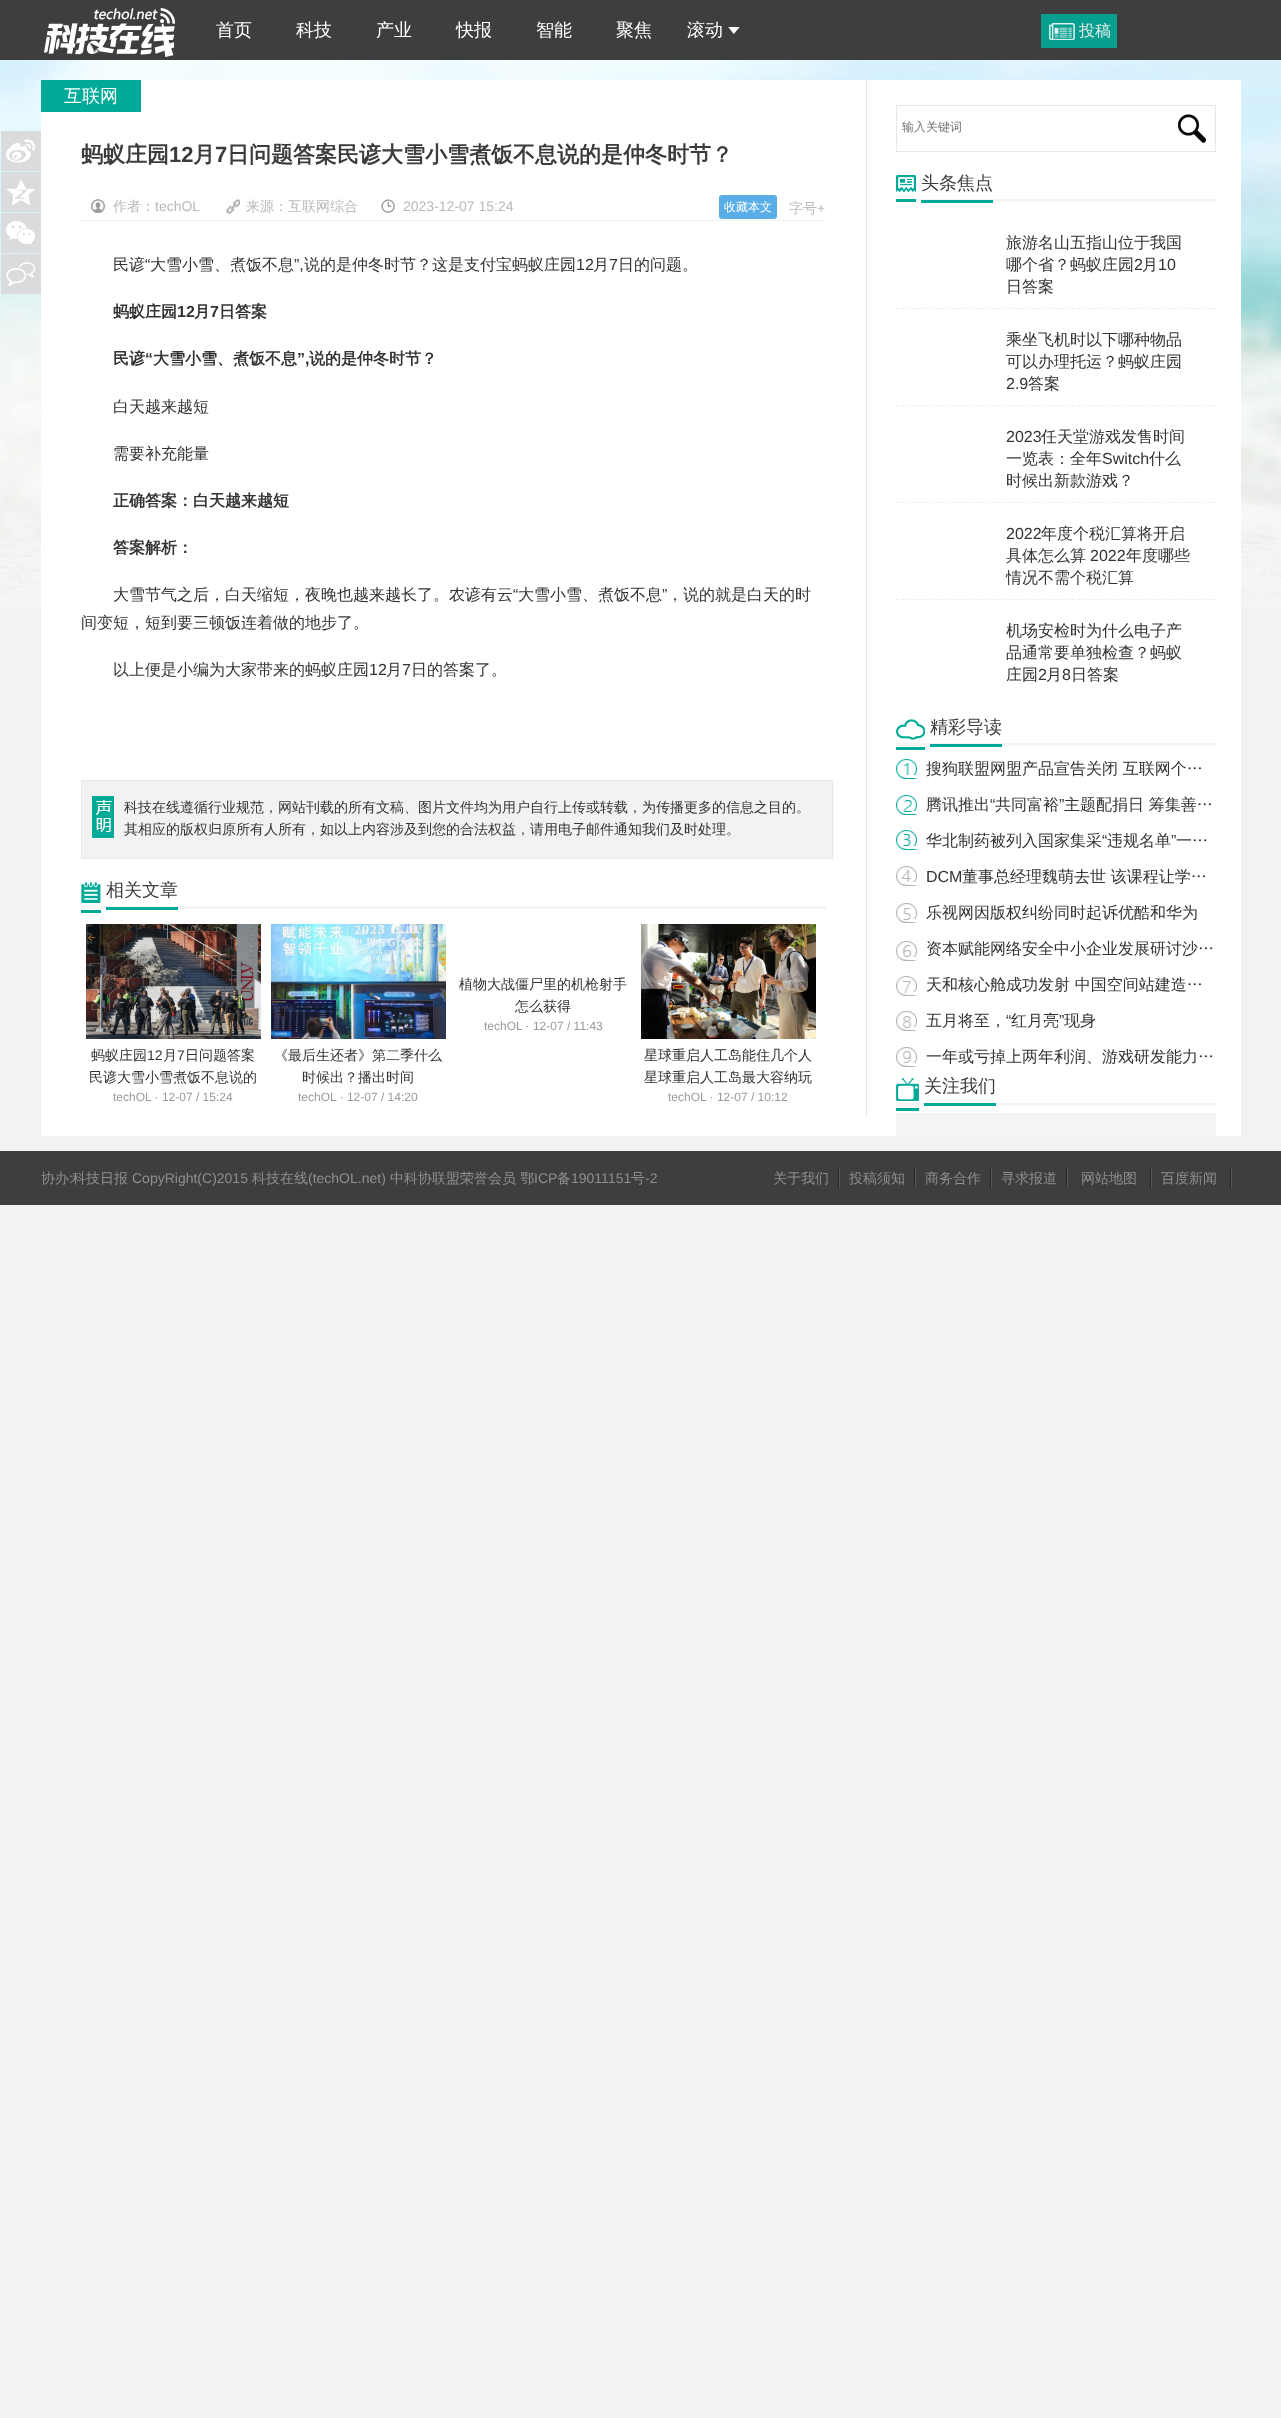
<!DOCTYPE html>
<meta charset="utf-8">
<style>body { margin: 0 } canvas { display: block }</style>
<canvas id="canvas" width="1281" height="2418"></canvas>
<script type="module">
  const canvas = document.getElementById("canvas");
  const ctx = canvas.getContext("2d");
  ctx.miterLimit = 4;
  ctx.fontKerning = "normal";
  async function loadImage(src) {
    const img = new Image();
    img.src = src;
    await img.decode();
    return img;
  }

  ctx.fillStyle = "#f2f2f2";
  ctx.fillRect(0, 0, 1281, 2418);
  ctx.drawImage(await loadImage("img1.png"), 0, 60, 1281, 548);
  ctx.fillStyle = "#3e3e3e";
  ctx.fillRect(0, 0, 1281, 60);
  ctx.drawImage(await loadImage("img2.png"), 44, 8, 131, 49);
  ctx.font = "500 18px WenQuanYi Zen Hei";
  ctx.fillStyle = "#ffffff";
  ctx.fillText("首页", 216, 36);
  ctx.fillText("科技", 296, 36);
  ctx.fillText("产业", 376, 36);
  ctx.fillText("快报", 456, 36);
  ctx.fillText("智能", 536, 36);
  ctx.fillText("聚焦", 616, 36);
  ctx.fillText("滚动", 687, 36);
  ctx.drawImage(await loadImage("img3.png"), 728, 27, 12, 7);
  ctx.fillStyle = "#069f8f";
  ctx.fillRect(1041, 14, 76, 34);
  ctx.drawImage(await loadImage("img4.png"), 1049, 23, 26, 17);
  ctx.font = "500 16px WenQuanYi Zen Hei";
  ctx.fillStyle = "#ececec";
  ctx.fillText("投稿", 1079, 36);
  ctx.fillStyle = "#ffffff";
  ctx.fillRect(41, 80, 1200, 1056);
  ctx.fillStyle = "#dadbdd";
  ctx.fillRect(1, 131, 40, 40);
  ctx.drawImage(await loadImage("img5.png"), 6, 139, 29, 24);
  ctx.fillRect(1, 172, 40, 40);
  ctx.drawImage(await loadImage("img6.png"), 6, 180, 29, 25);
  ctx.fillRect(1, 213, 40, 40);
  ctx.drawImage(await loadImage("img7.png"), 6, 221, 29, 24);
  ctx.fillRect(1, 254, 40, 40);
  ctx.drawImage(await loadImage("img8.png"), 6, 262, 29, 24);
  ctx.fillStyle = "#e5e5e5";
  ctx.fillRect(866, 80, 1, 1036);
  ctx.fillStyle = "#00aa98";
  ctx.fillRect(41, 80, 100, 32);
  ctx.font = "500 18px WenQuanYi Zen Hei";
  ctx.fillStyle = "#ffffff";
  ctx.fillText("互联网", 64, 102);
  ctx.fillStyle = "#f2f2f2";
  ctx.fillRect(81, 220, 745, 1);
  ctx.font = "bold 22px WenQuanYi Zen Hei";
  ctx.fillStyle = "#3c3b3c";
  ctx.fillText("蚂蚁庄园", 81, 162);
  ctx.font = "bold 22px Liberation Sans";
  ctx.fillText("12", 169, 162);
  ctx.font = "bold 22px WenQuanYi Zen Hei";
  ctx.fillText("月", 193, 162);
  ctx.font = "bold 22px Liberation Sans";
  ctx.fillText("7", 215, 162);
  ctx.font = "bold 22px WenQuanYi Zen Hei";
  ctx.fillText("日问题答案民谚大雪小雪煮饭不息说的是仲冬时节？", 227, 162);
  ctx.drawImage(await loadImage("img9.png"), 91, 199, 14, 14);
  ctx.font = "500 14px WenQuanYi Zen Hei";
  ctx.fillStyle = "#b9b9b9";
  ctx.fillText("作者：", 113, 211);
  ctx.font = "14px Liberation Sans";
  ctx.fillText("techOL", 155, 211);
  ctx.drawImage(await loadImage("img10.png"), 226, 199, 14, 15);
  ctx.font = "500 14px WenQuanYi Zen Hei";
  ctx.fillText("来源：互联网综合", 246, 211);
  ctx.drawImage(await loadImage("img11.png"), 381, 199, 14, 14);
  ctx.font = "14px Liberation Sans";
  ctx.fillText("2023-12-07 15:24", 403, 211);
  ctx.fillStyle = "#59aee7";
  ctx.beginPath();
  ctx.roundRect(719, 195, 58, 24, 3);
  ctx.fill();
  ctx.font = "500 12px WenQuanYi Zen Hei";
  ctx.fillStyle = "#ffffff";
  ctx.fillText("收藏本文", 724, 211);
  ctx.font = "500 14px WenQuanYi Zen Hei";
  ctx.fillStyle = "#b9b9b9";
  ctx.fillText("字号", 789, 213);
  ctx.font = "14px Liberation Sans";
  ctx.fillText("+", 817, 213);
  ctx.font = "500 16px WenQuanYi Zen Hei";
  ctx.fillStyle = "#333333";
  ctx.fillText("民谚", 113, 270);
  ctx.font = "16px Liberation Sans";
  ctx.fillText("“", 145, 270);
  ctx.font = "500 16px WenQuanYi Zen Hei";
  ctx.fillText("大雪小雪、煮饭不息", 150, 270);
  ctx.font = "16px Liberation Sans";
  ctx.fillText("”,", 294, 270);
  ctx.font = "500 16px WenQuanYi Zen Hei";
  ctx.fillText("说的是仲冬时节？这是支付宝蚂蚁庄园", 304, 270);
  ctx.font = "16px Liberation Sans";
  ctx.fillText("12", 576, 270);
  ctx.font = "500 16px WenQuanYi Zen Hei";
  ctx.fillText("月", 593, 270);
  ctx.font = "16px Liberation Sans";
  ctx.fillText("7", 609, 270);
  ctx.font = "500 16px WenQuanYi Zen Hei";
  ctx.fillText("日的问题。", 618, 270);
  ctx.font = "bold 16px WenQuanYi Zen Hei";
  ctx.fillText("蚂蚁庄园", 113, 317);
  ctx.font = "bold 16px Liberation Sans";
  ctx.fillText("12", 177, 317);
  ctx.font = "bold 16px WenQuanYi Zen Hei";
  ctx.fillText("月", 194, 317);
  ctx.font = "bold 16px Liberation Sans";
  ctx.fillText("7", 210, 317);
  ctx.font = "bold 16px WenQuanYi Zen Hei";
  ctx.fillText("日答案", 219, 317);
  ctx.fillText("民谚", 113, 364);
  ctx.font = "bold 16px Liberation Sans";
  ctx.fillText("“", 145, 364);
  ctx.font = "bold 16px WenQuanYi Zen Hei";
  ctx.fillText("大雪小雪、煮饭不息", 153, 364);
  ctx.font = "bold 16px Liberation Sans";
  ctx.fillText("”,", 297, 364);
  ctx.font = "bold 16px WenQuanYi Zen Hei";
  ctx.fillText("说的是仲冬时节？", 309, 364);
  ctx.font = "500 16px WenQuanYi Zen Hei";
  ctx.fillText("白天越来越短", 113, 412);
  ctx.fillText("需要补充能量", 113, 459);
  ctx.font = "bold 16px WenQuanYi Zen Hei";
  ctx.fillText("正确答案：白天越来越短", 113, 506);
  ctx.fillText("答案解析：", 113, 553);
  ctx.font = "500 16px WenQuanYi Zen Hei";
  ctx.fillText("大雪节气之后，白天缩短，夜晚也越来越长了。农谚有云", 113, 600);
  ctx.font = "16px Liberation Sans";
  ctx.fillText("“", 513, 600);
  ctx.font = "500 16px WenQuanYi Zen Hei";
  ctx.fillText("大雪小雪、煮饭不息", 518, 600);
  ctx.font = "16px Liberation Sans";
  ctx.fillText("”", 662, 600);
  ctx.font = "500 16px WenQuanYi Zen Hei";
  ctx.fillText("，说的就是白天的时", 667, 600);
  ctx.fillText("间变短，短到要三顿饭连着做的地步了。", 81, 628);
  ctx.fillText("以上便是小编为大家带来的蚂蚁庄园", 113, 675);
  ctx.font = "16px Liberation Sans";
  ctx.fillText("12", 369, 675);
  ctx.font = "500 16px WenQuanYi Zen Hei";
  ctx.fillText("月", 386, 675);
  ctx.font = "16px Liberation Sans";
  ctx.fillText("7", 402, 675);
  ctx.font = "500 16px WenQuanYi Zen Hei";
  ctx.fillText("日的答案了。", 411, 675);
  ctx.fillStyle = "#f2f2f2";
  ctx.beginPath();
  ctx.rect(81.5, 780.5, 751, 78);
  ctx.fill();
  ctx.strokeStyle = "#e8e8e8";
  ctx.stroke();
  ctx.drawImage(await loadImage("img12.png"), 92, 796, 22, 42);
  ctx.font = "500 14px WenQuanYi Zen Hei";
  ctx.fillStyle = "#333333";
  ctx.fillText("科技在线遵循行业规范，网站刊载的所有文稿、图片文件均为用户自行上传或转载，为传播更多的信息之目的。", 124, 812);
  ctx.fillText("其相应的版权归原所有人所有，如以上内容涉及到您的合法权益，请用电子邮件通知我们及时处理。", 124, 834);
  ctx.fillStyle = "#f5f5f5";
  ctx.fillRect(81, 906, 745, 3);
  ctx.drawImage(await loadImage("img13.png"), 81, 882, 20, 21);
  ctx.font = "500 18px WenQuanYi Zen Hei";
  ctx.fillStyle = "#3c3b3c";
  ctx.fillText("相关文章", 106, 896);
  ctx.fillStyle = "#00aa98";
  ctx.fillRect(81, 910, 20, 3);
  ctx.fillRect(106, 907, 72, 3);
  ctx.font = "500 14px WenQuanYi Zen Hei";
  ctx.fillStyle = "#333333";
  ctx.fillText("植物大战僵尸里的机枪射手", 459, 989);
  ctx.fillText("怎么获得", 515, 1011);
  ctx.font = "12px Liberation Sans";
  ctx.fillStyle = "#999999";
  ctx.fillText("techOL · 12-07 / 11:43", 484, 1030);
  ctx.drawImage(await loadImage("img14.png"), 86, 924, 175, 115);
  ctx.font = "500 14px WenQuanYi Zen Hei";
  ctx.fillStyle = "#333333";
  ctx.fillText("蚂蚁庄园", 91, 1060);
  ctx.font = "14px Liberation Sans";
  ctx.fillText("12", 147, 1060);
  ctx.font = "500 14px WenQuanYi Zen Hei";
  ctx.fillText("月", 163, 1060);
  ctx.font = "14px Liberation Sans";
  ctx.fillText("7", 177, 1060);
  ctx.font = "500 14px WenQuanYi Zen Hei";
  ctx.fillText("日问题答案", 185, 1060);
  ctx.fillText("民谚大雪小雪煮饭不息说的", 89, 1082);
  ctx.font = "12px Liberation Sans";
  ctx.fillStyle = "#999999";
  ctx.fillText("techOL · 12-07 / 15:24", 113, 1101);
  ctx.drawImage(await loadImage("img15.png"), 271, 924, 175, 115);
  ctx.font = "500 14px WenQuanYi Zen Hei";
  ctx.fillStyle = "#333333";
  ctx.fillText("《最后生还者》第二季什么", 274, 1060);
  ctx.fillText("时候出？播出时间", 302, 1082);
  ctx.font = "12px Liberation Sans";
  ctx.fillStyle = "#999999";
  ctx.fillText("techOL · 12-07 / 14:20", 298, 1101);
  ctx.drawImage(await loadImage("img16.png"), 641, 924, 175, 115);
  ctx.font = "500 14px WenQuanYi Zen Hei";
  ctx.fillStyle = "#333333";
  ctx.fillText("星球重启人工岛能住几个人", 644, 1060);
  ctx.fillText("星球重启人工岛最大容纳玩", 644, 1082);
  ctx.font = "12px Liberation Sans";
  ctx.fillStyle = "#999999";
  ctx.fillText("techOL · 12-07 / 10:12", 668, 1101);
  ctx.strokeRect(896.5, 105.5, 319, 46);
  ctx.font = "500 12px WenQuanYi Zen Hei";
  ctx.fillStyle = "#757575";
  ctx.fillText("输入关键词", 902, 131);
  ctx.drawImage(await loadImage("img17.png"), 1178, 114, 28, 29);
  ctx.fillStyle = "#f5f5f5";
  ctx.fillRect(916, 199, 300, 3);
  ctx.drawImage(await loadImage("img18.png"), 896, 175, 20, 17);
  ctx.font = "500 18px WenQuanYi Zen Hei";
  ctx.fillStyle = "#3c3b3c";
  ctx.fillText("头条焦点", 921, 189);
  ctx.fillStyle = "#00aa98";
  ctx.fillRect(896, 199, 20, 3);
  ctx.fillRect(921, 200, 72, 3);
  ctx.font = "500 16px WenQuanYi Zen Hei";
  ctx.fillStyle = "#333333";
  ctx.fillText("旅游名山五指山位于我国", 1006, 248);
  ctx.fillText("哪个省？蚂蚁庄园", 1006, 270);
  ctx.font = "16px Liberation Sans";
  ctx.fillText("2", 1134, 270);
  ctx.font = "500 16px WenQuanYi Zen Hei";
  ctx.fillText("月", 1142, 270);
  ctx.font = "16px Liberation Sans";
  ctx.fillText("10", 1158, 270);
  ctx.font = "500 16px WenQuanYi Zen Hei";
  ctx.fillText("日答案", 1006, 292);
  ctx.beginPath();
  ctx.moveTo(896, 308.5);
  ctx.lineTo(1216, 308.5);
  ctx.strokeStyle = "#eeeeee";
  ctx.setLineDash([3, 2.03]);
  ctx.stroke();
  ctx.fillText("乘坐飞机时以下哪种物品", 1006, 345);
  ctx.fillText("可以办理托运？蚂蚁庄园", 1006, 367);
  ctx.font = "16px Liberation Sans";
  ctx.fillText("2.9", 1006, 389);
  ctx.font = "500 16px WenQuanYi Zen Hei";
  ctx.fillText("答案", 1028, 389);
  ctx.beginPath();
  ctx.moveTo(896, 405.5);
  ctx.lineTo(1216, 405.5);
  ctx.stroke();
  ctx.font = "16px Liberation Sans";
  ctx.fillText("2023", 1006, 442);
  ctx.font = "500 16px WenQuanYi Zen Hei";
  ctx.fillText("任天堂游戏发售时间", 1041, 442);
  ctx.fillText("一览表：全年", 1006, 464);
  ctx.font = "16px Liberation Sans";
  ctx.fillText("Switch", 1102, 464);
  ctx.font = "500 16px WenQuanYi Zen Hei";
  ctx.fillText("什么", 1149, 464);
  ctx.fillText("时候出新款游戏？", 1006, 486);
  ctx.beginPath();
  ctx.moveTo(896, 502.5);
  ctx.lineTo(1216, 502.5);
  ctx.stroke();
  ctx.font = "16px Liberation Sans";
  ctx.fillText("2022", 1006, 539);
  ctx.font = "500 16px WenQuanYi Zen Hei";
  ctx.fillText("年度个税汇算将开启", 1041, 539);
  ctx.fillText("具体怎么算", 1006, 561);
  ctx.font = "16px Liberation Sans";
  ctx.fillText("2022", 1090, 561);
  ctx.font = "500 16px WenQuanYi Zen Hei";
  ctx.fillText("年度哪些", 1126, 561);
  ctx.fillText("情况不需个税汇算", 1006, 583);
  ctx.beginPath();
  ctx.moveTo(896, 599.5);
  ctx.lineTo(1216, 599.5);
  ctx.stroke();
  ctx.fillText("机场安检时为什么电子产", 1006, 636);
  ctx.fillText("品通常要单独检查？蚂蚁", 1006, 658);
  ctx.fillText("庄园", 1006, 680);
  ctx.font = "16px Liberation Sans";
  ctx.fillText("2", 1038, 680);
  ctx.font = "500 16px WenQuanYi Zen Hei";
  ctx.fillText("月", 1046, 680);
  ctx.font = "16px Liberation Sans";
  ctx.fillText("8", 1062, 680);
  ctx.font = "500 16px WenQuanYi Zen Hei";
  ctx.fillText("日答案", 1071, 680);
  ctx.fillStyle = "#f5f5f5";
  ctx.fillRect(896, 743, 320, 3);
  ctx.drawImage(await loadImage("img19.png"), 896, 719, 29, 21);
  ctx.font = "500 18px WenQuanYi Zen Hei";
  ctx.fillStyle = "#3c3b3c";
  ctx.fillText("精彩导读", 930, 733);
  ctx.fillStyle = "#00aa98";
  ctx.fillRect(896, 747, 29, 3);
  ctx.fillRect(930, 744, 72, 3);
  ctx.drawImage(await loadImage("img20.png"), 896, 759, 21, 308);
  ctx.font = "500 16px WenQuanYi Zen Hei";
  ctx.fillStyle = "#333333";
  ctx.fillText("搜狗联盟网盟产品宣告关闭 互联网个…", 926, 774);
  ctx.fillText("腾讯推出", 926, 810);
  ctx.font = "16px Liberation Sans";
  ctx.fillText("“", 990, 810);
  ctx.font = "500 16px WenQuanYi Zen Hei";
  ctx.fillText("共同富裕", 995, 810);
  ctx.font = "16px Liberation Sans";
  ctx.fillText("”", 1059, 810);
  ctx.font = "500 16px WenQuanYi Zen Hei";
  ctx.fillText("主题配捐日 筹集善…", 1064, 810);
  ctx.fillText("华北制药被列入国家集采", 926, 846);
  ctx.font = "16px Liberation Sans";
  ctx.fillText("“", 1102, 846);
  ctx.font = "500 16px WenQuanYi Zen Hei";
  ctx.fillText("违规名单", 1107, 846);
  ctx.font = "16px Liberation Sans";
  ctx.fillText("”", 1171, 846);
  ctx.font = "500 16px WenQuanYi Zen Hei";
  ctx.fillText("一…", 1176, 846);
  ctx.font = "16px Liberation Sans";
  ctx.fillText("DCM", 926, 882);
  ctx.font = "500 16px WenQuanYi Zen Hei";
  ctx.fillText("董事总经理魏萌去世 该课程让学…", 962, 882);
  ctx.fillText("乐视网因版权纠纷同时起诉优酷和华为", 926, 918);
  ctx.fillText("资本赋能网络安全中小企业发展研讨沙…", 926, 954);
  ctx.fillText("天和核心舱成功发射 中国空间站建造…", 926, 990);
  ctx.fillText("五月将至，", 926, 1026);
  ctx.font = "16px Liberation Sans";
  ctx.fillText("“", 1006, 1026);
  ctx.font = "500 16px WenQuanYi Zen Hei";
  ctx.fillText("红月亮", 1011, 1026);
  ctx.font = "16px Liberation Sans";
  ctx.fillText("”", 1059, 1026);
  ctx.font = "500 16px WenQuanYi Zen Hei";
  ctx.fillText("现身", 1064, 1026);
  ctx.fillText("一年或亏掉上两年利润、游戏研发能力…", 926, 1062);
  ctx.fillStyle = "#f5f5f5";
  ctx.fillRect(896, 1103, 320, 3);
  ctx.drawImage(await loadImage("img21.png"), 896, 1078, 23, 23);
  ctx.font = "500 18px WenQuanYi Zen Hei";
  ctx.fillStyle = "#3c3b3c";
  ctx.fillText("关注我们", 924, 1092);
  ctx.fillStyle = "#00aa98";
  ctx.fillRect(896, 1108, 23, 3);
  ctx.fillRect(924, 1103, 72, 3);
  ctx.fillStyle = "#f4f4f4";
  ctx.fillRect(896, 1113, 320, 23);
  ctx.fillStyle = "#3e3e3e";
  ctx.fillRect(0, 1151, 1281, 54);
  ctx.font = "500 14px WenQuanYi Zen Hei";
  ctx.fillStyle = "#8f8f8f";
  ctx.fillText("协办", 41, 1183);
  ctx.font = "14px Liberation Sans";
  ctx.fillText(":", 69, 1183);
  ctx.font = "500 14px WenQuanYi Zen Hei";
  ctx.fillText("科技日报", 72, 1183);
  ctx.font = "14px Liberation Sans";
  ctx.fillText("CopyRight(C)2015", 132, 1183);
  ctx.font = "500 14px WenQuanYi Zen Hei";
  ctx.fillText("科技在线", 252, 1183);
  ctx.font = "14px Liberation Sans";
  ctx.fillText("(techOL.net)", 308, 1183);
  ctx.font = "500 14px WenQuanYi Zen Hei";
  ctx.fillText("中科协联盟荣誉会员 鄂", 390, 1183);
  ctx.font = "14px Liberation Sans";
  ctx.fillText("ICP", 534, 1183);
  ctx.font = "500 14px WenQuanYi Zen Hei";
  ctx.fillText("备", 557, 1183);
  ctx.font = "14px Liberation Sans";
  ctx.fillText("19011151", 571, 1183);
  ctx.font = "500 14px WenQuanYi Zen Hei";
  ctx.fillText("号", 631, 1183);
  ctx.font = "14px Liberation Sans";
  ctx.fillText("-2", 645, 1183);
  ctx.font = "500 14px WenQuanYi Zen Hei";
  ctx.fillText("关于我们", 773, 1183);
  ctx.drawImage(await loadImage("img22.png"), 838, 1168, 2, 20);
  ctx.fillText("投稿须知", 849, 1183);
  ctx.drawImage(await loadImage("img22.png"), 914, 1168, 2, 20);
  ctx.fillText("商务合作", 925, 1183);
  ctx.drawImage(await loadImage("img22.png"), 990, 1168, 2, 20);
  ctx.fillText("寻求报道", 1001, 1183);
  ctx.drawImage(await loadImage("img22.png"), 1066, 1168, 2, 20);
  ctx.fillText("网站地图", 1081, 1183);
  ctx.drawImage(await loadImage("img22.png"), 1150, 1168, 2, 20);
  ctx.fillText("百度新闻", 1161, 1183);
  ctx.drawImage(await loadImage("img22.png"), 1230, 1168, 2, 20);
</script>
